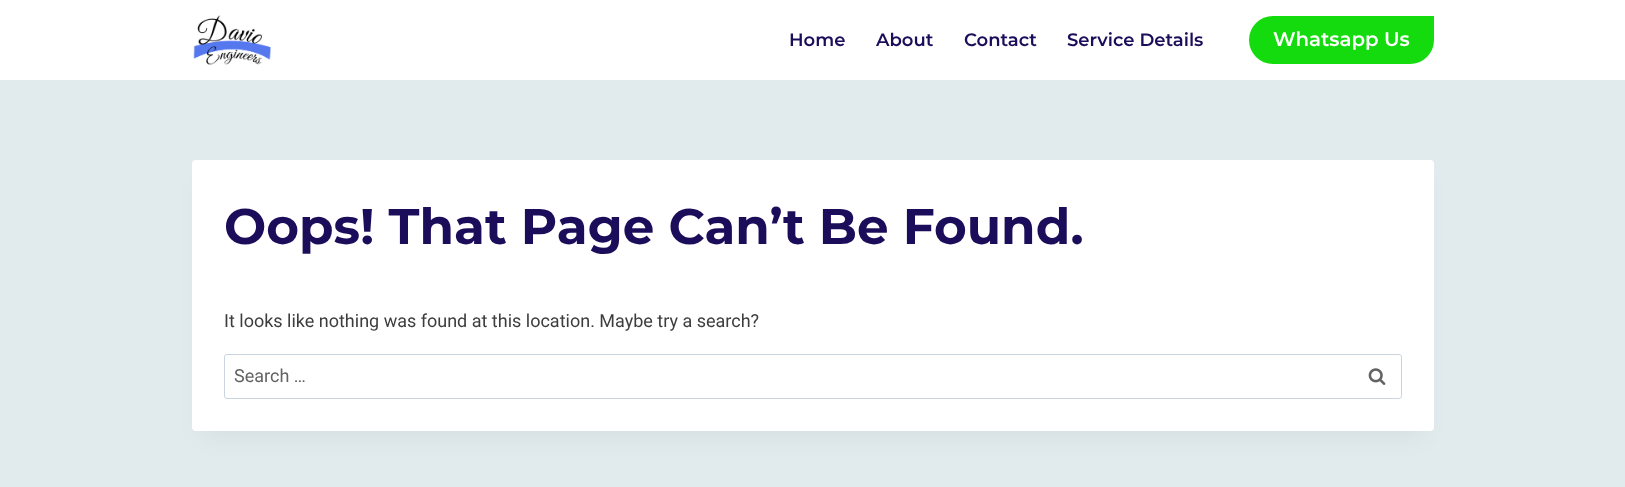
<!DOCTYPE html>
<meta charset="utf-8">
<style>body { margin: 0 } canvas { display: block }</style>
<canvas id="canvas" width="1625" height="487"></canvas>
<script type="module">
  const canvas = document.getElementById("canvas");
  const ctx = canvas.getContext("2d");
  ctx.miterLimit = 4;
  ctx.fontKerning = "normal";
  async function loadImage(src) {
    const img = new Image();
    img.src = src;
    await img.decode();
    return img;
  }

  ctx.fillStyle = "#e1ebee";
  ctx.fillRect(0, 0, 1625, 487);
  ctx.fillStyle = "#ffffff";
  ctx.fillRect(0, 0, 1625, 80);
  ctx.drawImage(await loadImage("img1.png"), 193, 15, 78, 50);
  ctx.font = "600 18px Montserrat";
  ctx.fillStyle = "#1c0d5a";
  ctx.fillText("Home", 789, 46);
  ctx.fillText("About", 876, 46);
  ctx.fillText("Contact", 964, 46);
  ctx.fillText("Service Details", 1067, 46);
  ctx.fillStyle = "#14db0d";
  ctx.beginPath();
  ctx.roundRect(1249, 16, 185, 48, [24, 0, 24, 24]);
  ctx.fill();
  ctx.font = "600 19.75px Montserrat";
  ctx.fillStyle = "#ffffff";
  ctx.fillText("Whatsapp Us", 1273, 46);
  ctx.fillStyle = "rgba(0, 0, 0, 0.05)";
  ctx.filter = "blur(12.5px)";
  ctx.beginPath();
  ctx.rect(202, 185, 1222, 251);
  ctx.fill();
  ctx.filter = "none";
  ctx.fillStyle = "#ffffff";
  ctx.beginPath();
  ctx.roundRect(192, 160, 1242, 271, 4);
  ctx.fill();
  ctx.font = "bold 50px Montserrat";
  ctx.fillStyle = "#1c0d5a";
  ctx.fillText("Oops! That Page Can’t Be Found.", 224, 244);
  ctx.font = "18px Roboto";
  ctx.fillStyle = "#3d3d3d";
  ctx.fillText("It looks like nothing was found at this location. Maybe try a search?", 224, 327);
  ctx.beginPath();
  ctx.roundRect(224.5, 354.5, 1177, 44, 2.5);
  ctx.strokeStyle = "#cbd5e0";
  ctx.stroke();
  ctx.fillStyle = "#636363";
  ctx.fillText("Search …", 234, 382);
  ctx.drawImage(await loadImage("img2.png"), 1368, 368, 18, 17);
</script>
